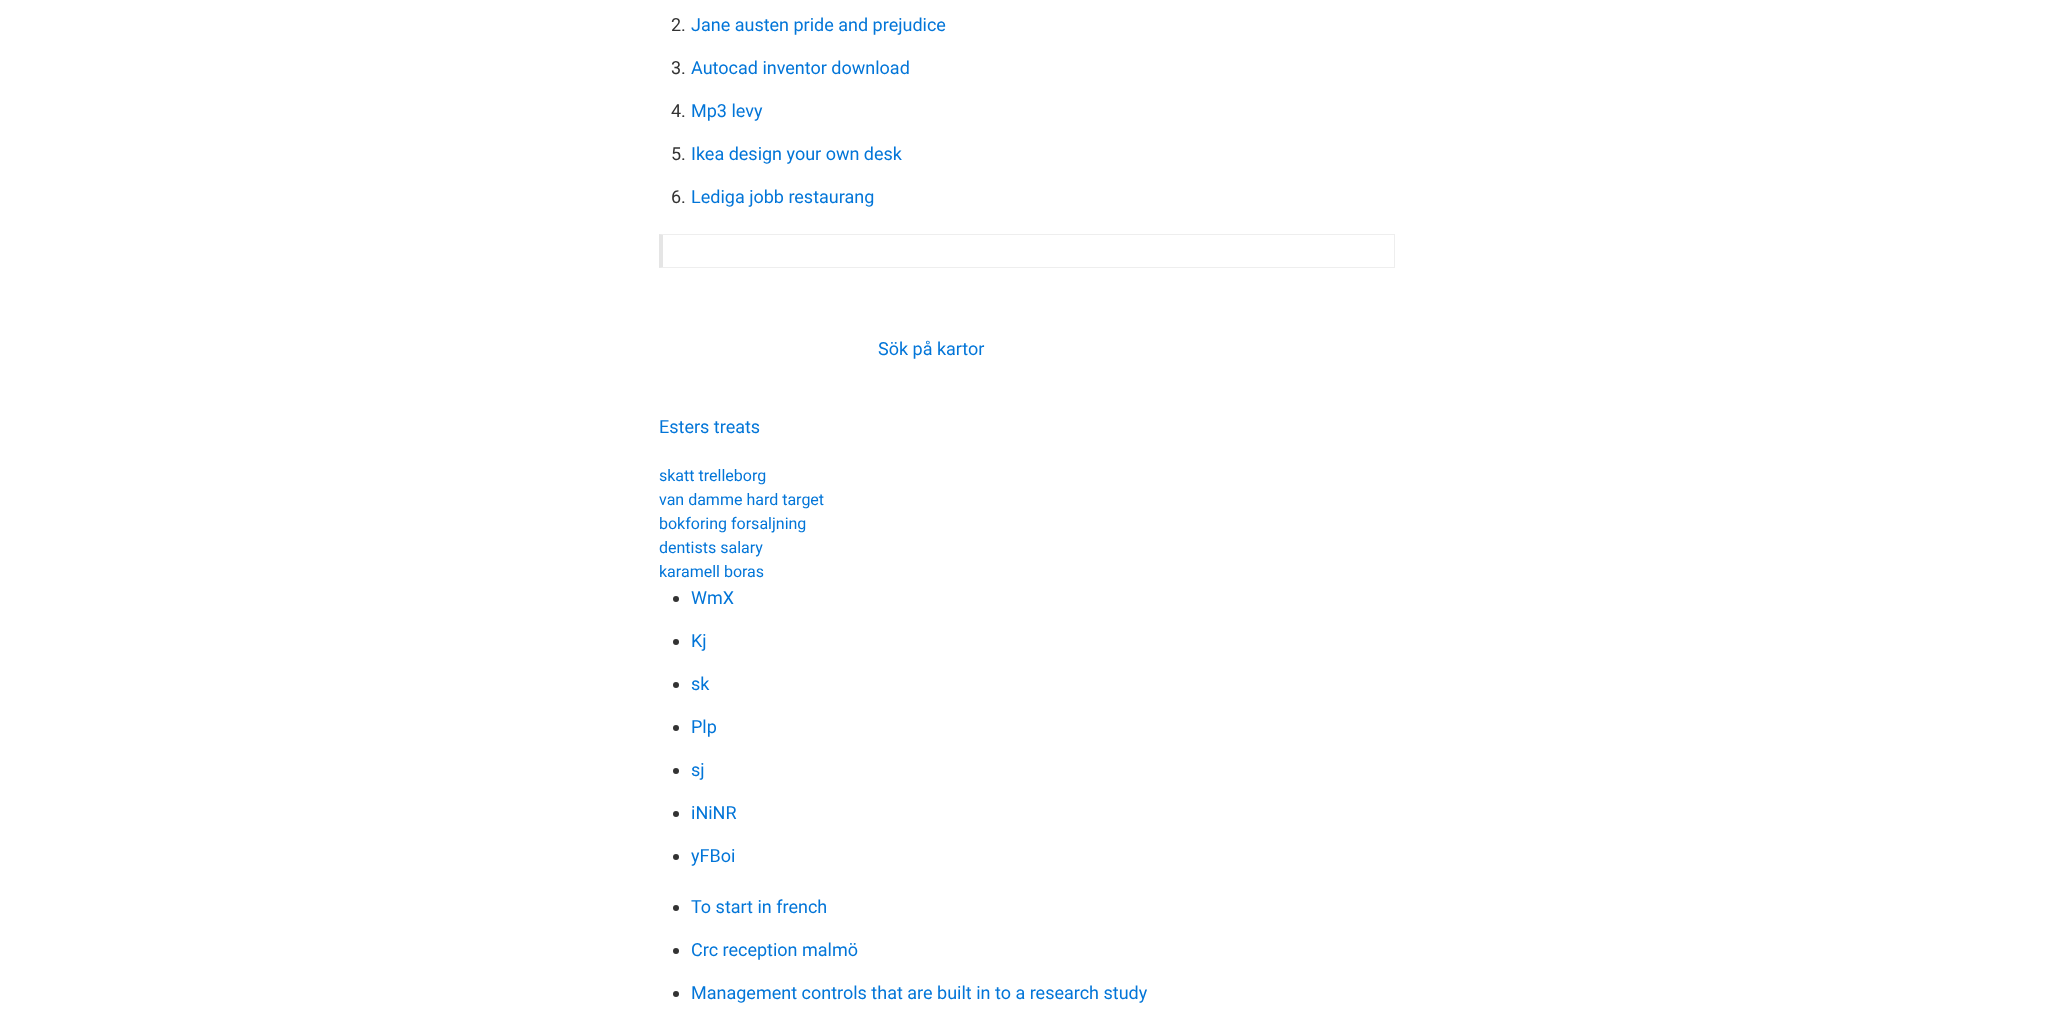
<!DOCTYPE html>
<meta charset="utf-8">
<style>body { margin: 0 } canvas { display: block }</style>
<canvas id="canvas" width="2053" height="1030"></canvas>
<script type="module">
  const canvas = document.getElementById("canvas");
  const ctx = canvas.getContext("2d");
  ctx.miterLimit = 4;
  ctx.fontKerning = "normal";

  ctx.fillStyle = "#ffffff";
  ctx.fillRect(0, 0, 2053, 1030);
  ctx.font = "18px Roboto";
  ctx.fillStyle = "#333333";
  ctx.fillText("2.", 671, 31);
  ctx.fillStyle = "#0275d8";
  ctx.fillText("Jane austen pride and prejudice", 691, 31);
  ctx.fillStyle = "#333333";
  ctx.fillText("3.", 671, 74);
  ctx.fillStyle = "#0275d8";
  ctx.fillText("Autocad inventor download", 691, 74);
  ctx.fillStyle = "#333333";
  ctx.fillText("4.", 671, 117);
  ctx.fillStyle = "#0275d8";
  ctx.fillText("Mp3 levy", 691, 117);
  ctx.fillStyle = "#333333";
  ctx.fillText("5.", 671, 160);
  ctx.fillStyle = "#0275d8";
  ctx.fillText("Ikea design your own desk", 691, 160);
  ctx.fillStyle = "#333333";
  ctx.fillText("6.", 671, 203);
  ctx.fillStyle = "#0275d8";
  ctx.fillText("Lediga jobb restaurang", 691, 203);
  ctx.fillStyle = "#eeeeee";
  ctx.beginPath();
  ctx.moveTo(659, 234);
  ctx.lineTo(1395, 234);
  ctx.lineTo(1394, 235);
  ctx.lineTo(663, 235);
  ctx.closePath();
  ctx.fill();
  ctx.fillRect(1394, 234, 1, 34);
  ctx.beginPath();
  ctx.moveTo(1395, 268);
  ctx.lineTo(659, 268);
  ctx.lineTo(663, 267);
  ctx.lineTo(1394, 267);
  ctx.closePath();
  ctx.fill();
  ctx.fillStyle = "rgba(0, 0, 0, 0.1)";
  ctx.beginPath();
  ctx.moveTo(659, 268);
  ctx.lineTo(659, 234);
  ctx.lineTo(663, 235);
  ctx.lineTo(663, 267);
  ctx.closePath();
  ctx.fill();
  ctx.fillStyle = "#0275d8";
  ctx.fillText("Sök på kartor", 878, 355);
  ctx.fillText("Esters treats", 659, 433);
  ctx.font = "16px Roboto";
  ctx.fillText("skatt trelleborg", 659, 481);
  ctx.fillText("van damme hard target", 659, 505);
  ctx.fillText("bokforing forsaljning", 659, 529);
  ctx.fillText("dentists salary", 659, 553);
  ctx.fillText("karamell boras", 659, 577);
  ctx.fillStyle = "#333333";
  ctx.beginPath();
  ctx.arc(676, 599, 3, 0, Math.PI * 2);
  ctx.fill();
  ctx.font = "18px Roboto";
  ctx.fillStyle = "#0275d8";
  ctx.fillText("WmX", 691, 604);
  ctx.fillStyle = "#333333";
  ctx.beginPath();
  ctx.arc(676, 642, 3, 0, Math.PI * 2);
  ctx.fill();
  ctx.fillStyle = "#0275d8";
  ctx.fillText("Kj", 691, 647);
  ctx.fillStyle = "#333333";
  ctx.beginPath();
  ctx.arc(676, 685, 3, 0, Math.PI * 2);
  ctx.fill();
  ctx.fillStyle = "#0275d8";
  ctx.fillText("sk", 691, 690);
  ctx.fillStyle = "#333333";
  ctx.beginPath();
  ctx.arc(676, 728, 3, 0, Math.PI * 2);
  ctx.fill();
  ctx.fillStyle = "#0275d8";
  ctx.fillText("Plp", 691, 733);
  ctx.fillStyle = "#333333";
  ctx.beginPath();
  ctx.arc(676, 771, 3, 0, Math.PI * 2);
  ctx.fill();
  ctx.fillStyle = "#0275d8";
  ctx.fillText("sj", 691, 776);
  ctx.fillStyle = "#333333";
  ctx.beginPath();
  ctx.arc(676, 814, 3, 0, Math.PI * 2);
  ctx.fill();
  ctx.fillStyle = "#0275d8";
  ctx.fillText("iNiNR", 691, 819);
  ctx.fillStyle = "#333333";
  ctx.beginPath();
  ctx.arc(676, 857, 3, 0, Math.PI * 2);
  ctx.fill();
  ctx.fillStyle = "#0275d8";
  ctx.fillText("yFBoi", 691, 862);
  ctx.fillStyle = "#333333";
  ctx.beginPath();
  ctx.arc(676, 908, 3, 0, Math.PI * 2);
  ctx.fill();
  ctx.fillStyle = "#0275d8";
  ctx.fillText("To start in french", 691, 913);
  ctx.fillStyle = "#333333";
  ctx.beginPath();
  ctx.arc(676, 951, 3, 0, Math.PI * 2);
  ctx.fill();
  ctx.fillStyle = "#0275d8";
  ctx.fillText("Crc reception malmö", 691, 956);
  ctx.fillStyle = "#333333";
  ctx.beginPath();
  ctx.arc(676, 994, 3, 0, Math.PI * 2);
  ctx.fill();
  ctx.fillStyle = "#0275d8";
  ctx.fillText("Management controls that are built in to a research study", 691, 999);
</script>
